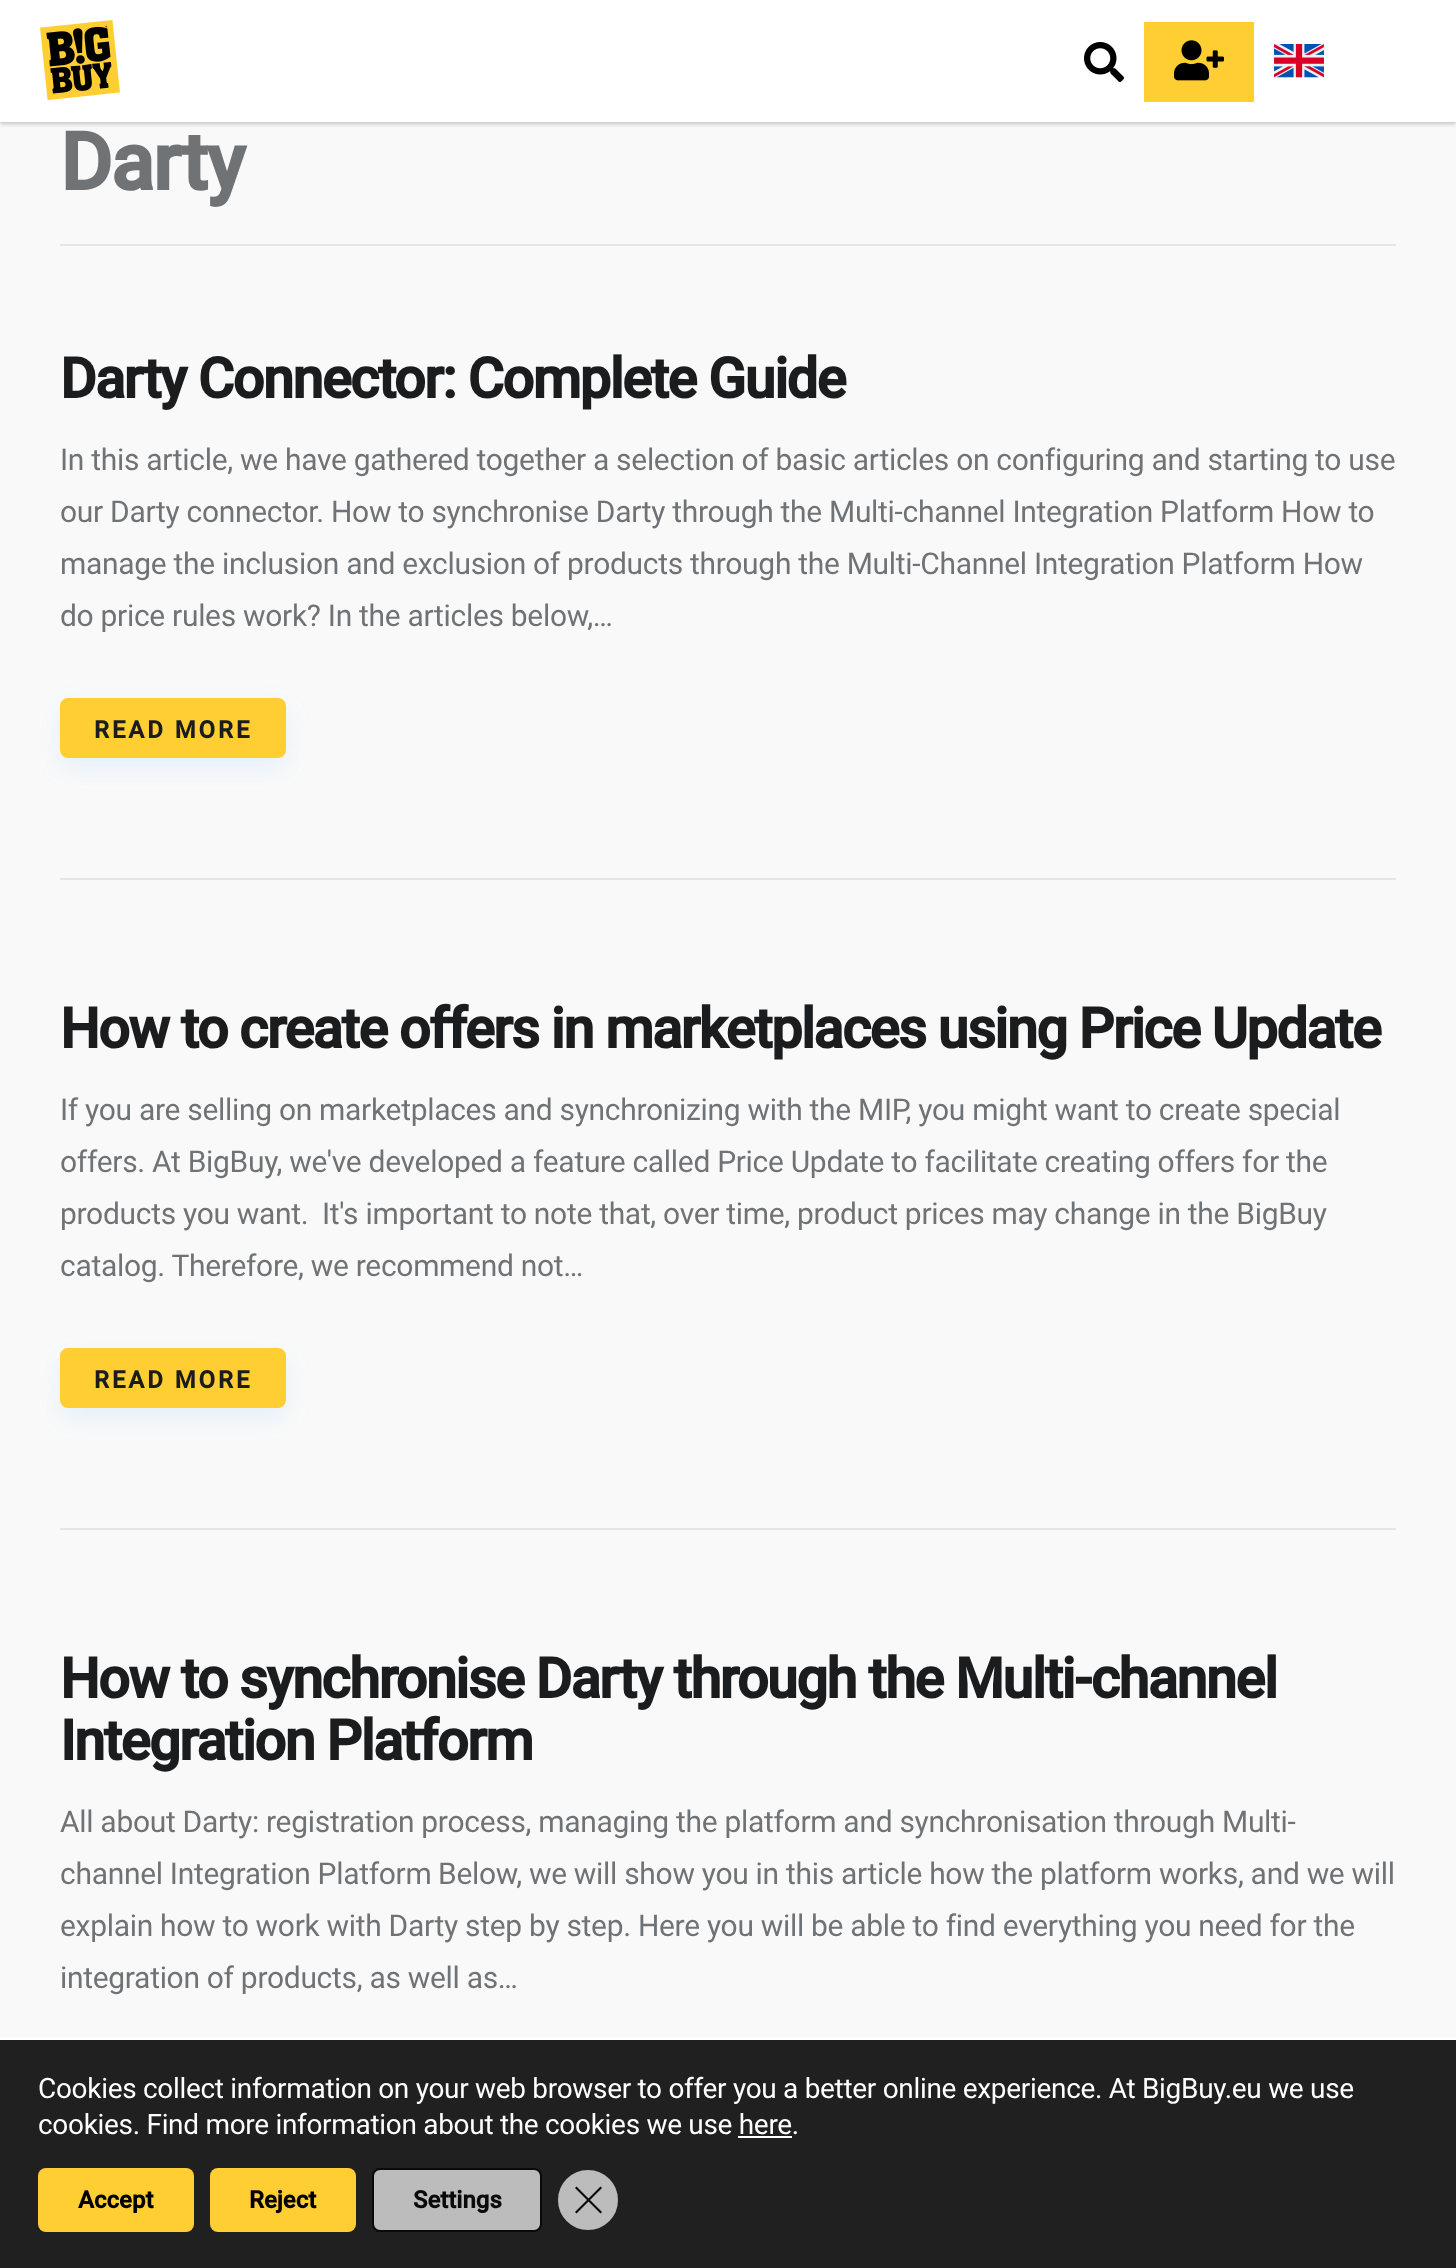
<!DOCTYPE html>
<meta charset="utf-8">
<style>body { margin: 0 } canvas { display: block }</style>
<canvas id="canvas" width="1456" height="2268"></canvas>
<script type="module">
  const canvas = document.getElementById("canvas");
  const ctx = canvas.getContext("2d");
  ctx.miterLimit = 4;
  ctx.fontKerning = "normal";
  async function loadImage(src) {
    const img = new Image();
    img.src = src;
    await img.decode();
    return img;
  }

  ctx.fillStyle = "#f9f9f9";
  ctx.fillRect(0, 0, 1456, 2268);
  ctx.fillStyle = "rgba(34, 36, 38, 0.25)";
  ctx.filter = "blur(2px)";
  ctx.beginPath();
  ctx.rect(0, 2, 1456, 122);
  ctx.fill();
  ctx.filter = "none";
  ctx.fillStyle = "#ffffff";
  ctx.fillRect(0, 0, 1456, 122);
  ctx.drawImage(await loadImage("img1.png"), 40, 20, 80, 81);
  ctx.drawImage(await loadImage("img2.png"), 1084, 42, 40, 40);
  ctx.fillStyle = "#ffce33";
  ctx.fillRect(1144, 22, 110, 80);
  ctx.drawImage(await loadImage("img3.png"), 1174, 40, 50, 41);
  ctx.drawImage(await loadImage("img4.png"), 1274, 44, 50, 34);
  ctx.fillStyle = "#e5e5e5";
  ctx.fillRect(60, 244, 1336, 2);
  ctx.letterSpacing = "-1.5px";
  ctx.font = "bold 80px Roboto";
  ctx.fillStyle = "#707376";
  ctx.fillText("Darty", 60, 190);
  ctx.letterSpacing = "-1.68px";
  ctx.font = "bold 56px Roboto";
  ctx.fillStyle = "#1b1c1d";
  ctx.fillText("Darty Connector: Complete Guide", 60, 398);
  ctx.letterSpacing = "-0.3px";
  ctx.font = "30px Roboto";
  ctx.fillStyle = "#707376";
  ctx.fillText("In this article, we have gathered together a selection of basic articles on configuring and starting to use", 60, 470);
  ctx.fillText("our Darty connector.", 60, 522);
  ctx.fillText("How to synchronise Darty through the Multi-channel Integration Platform How to", 331, 522);
  ctx.fillText("manage the inclusion and exclusion of products through the Multi-Channel Integration Platform How", 60, 574);
  ctx.fillText("do price rules work? In the articles below,…", 60, 626);
  ctx.fillStyle = "rgba(62, 171, 255, 0.1)";
  ctx.filter = "blur(12px)";
  ctx.beginPath();
  ctx.roundRect(60, 708, 226, 60, 8);
  ctx.fill();
  ctx.filter = "none";
  ctx.fillStyle = "#ffce33";
  ctx.beginPath();
  ctx.roundRect(62, 700, 222, 56, 6);
  ctx.fill();
  ctx.strokeStyle = "#ffce33";
  ctx.lineWidth = 4;
  ctx.stroke();
  ctx.letterSpacing = "2.9px";
  ctx.font = "bold 24px Roboto";
  ctx.fillStyle = "#1b1c1d";
  ctx.fillText("READ MORE", 94, 738);
  ctx.fillStyle = "#e5e5e5";
  ctx.fillRect(60, 878, 1336, 2);
  ctx.letterSpacing = "-1.68px";
  ctx.font = "bold 56px Roboto";
  ctx.fillStyle = "#1b1c1d";
  ctx.fillText("How to create offers in marketplaces using Price Update", 60, 1048);
  ctx.letterSpacing = "-0.3px";
  ctx.font = "30px Roboto";
  ctx.fillStyle = "#707376";
  ctx.fillText("If you are selling on marketplaces and synchronizing with the MIP, you might want to create special", 60, 1120);
  ctx.fillText("offers. At BigBuy, we've developed a feature called Price Update to facilitate creating offers for the", 60, 1172);
  ctx.fillText("products you want.", 60, 1224);
  ctx.fillText("It's important to note that, over time, product prices may change in the BigBuy", 322, 1224);
  ctx.fillText("catalog. Therefore, we recommend not…", 60, 1276);
  ctx.fillStyle = "rgba(62, 171, 255, 0.1)";
  ctx.filter = "blur(12px)";
  ctx.beginPath();
  ctx.roundRect(60, 1358, 226, 60, 8);
  ctx.fill();
  ctx.filter = "none";
  ctx.fillStyle = "#ffce33";
  ctx.beginPath();
  ctx.roundRect(62, 1350, 222, 56, 6);
  ctx.fill();
  ctx.stroke();
  ctx.letterSpacing = "2.9px";
  ctx.font = "bold 24px Roboto";
  ctx.fillStyle = "#1b1c1d";
  ctx.fillText("READ MORE", 94, 1388);
  ctx.fillStyle = "#e5e5e5";
  ctx.fillRect(60, 1528, 1336, 2);
  ctx.letterSpacing = "-1.68px";
  ctx.font = "bold 56px Roboto";
  ctx.fillStyle = "#1b1c1d";
  ctx.fillText("How to synchronise Darty through the Multi-channel", 60, 1698);
  ctx.fillText("Integration Platform", 60, 1760);
  ctx.letterSpacing = "-0.3px";
  ctx.font = "30px Roboto";
  ctx.fillStyle = "#707376";
  ctx.fillText("All about Darty: registration process, managing the platform and synchronisation through Multi-", 60, 1832);
  ctx.fillText("channel Integration Platform", 60, 1884);
  ctx.fillText("Below, we will show you in this article how the platform works, and we will", 438, 1884);
  ctx.fillText("explain how to work with Darty step by step. Here you will be able to find everything you need for the", 60, 1936);
  ctx.fillText("integration of products, as well as…", 60, 1988);
  ctx.fillStyle = "#202020";
  ctx.fillRect(0, 2040, 1456, 228);
  ctx.fillStyle = "#ffffff";
  ctx.fillRect(0, 2038, 1456, 2);
  ctx.font = "28px Roboto";
  ctx.fillText("Cookies collect information on your web browser to offer you a better online experience. At BigBuy.eu we use", 38, 2098);
  ctx.fillText("cookies. Find more information about the cookies we use here.", 38, 2134);
  ctx.fillRect(738, 2136, 54, 2);
  ctx.fillStyle = "#ffce33";
  ctx.beginPath();
  ctx.roundRect(38, 2168, 156, 64, 8);
  ctx.fill();
  ctx.letterSpacing = "0px";
  ctx.font = "bold 24px Roboto";
  ctx.fillStyle = "#000000";
  ctx.fillText("Accept", 78, 2208);
  ctx.fillStyle = "#ffce33";
  ctx.beginPath();
  ctx.roundRect(210, 2168, 146, 64, 8);
  ctx.fill();
  ctx.fillStyle = "#000000";
  ctx.fillText("Reject", 249, 2208);
  ctx.fillStyle = "#bcbcbc";
  ctx.beginPath();
  ctx.roundRect(373, 2169, 168, 62, 7);
  ctx.fill();
  ctx.strokeStyle = "#0a0a0a";
  ctx.lineWidth = 2;
  ctx.stroke();
  ctx.fillStyle = "#0a0a0a";
  ctx.fillText("Settings", 413, 2208);
  ctx.fillStyle = "#bcbcbc";
  ctx.beginPath();
  ctx.arc(588, 2200, 29, 0, Math.PI * 2);
  ctx.fill();
  ctx.strokeStyle = "#bcbcbc";
  ctx.stroke();
  ctx.fillStyle = "#0a0a0a";
  ctx.beginPath();
  ctx.moveTo(600.5, 2186.5);
  ctx.lineTo(602, 2188);
  ctx.lineTo(576.5, 2213.5);
  ctx.lineTo(575, 2212);
  ctx.closePath();
  ctx.fill();
  ctx.beginPath();
  ctx.moveTo(575, 2188);
  ctx.lineTo(576.5, 2186.5);
  ctx.lineTo(602, 2212);
  ctx.lineTo(600.5, 2213.5);
  ctx.closePath();
  ctx.fill();
</script>
